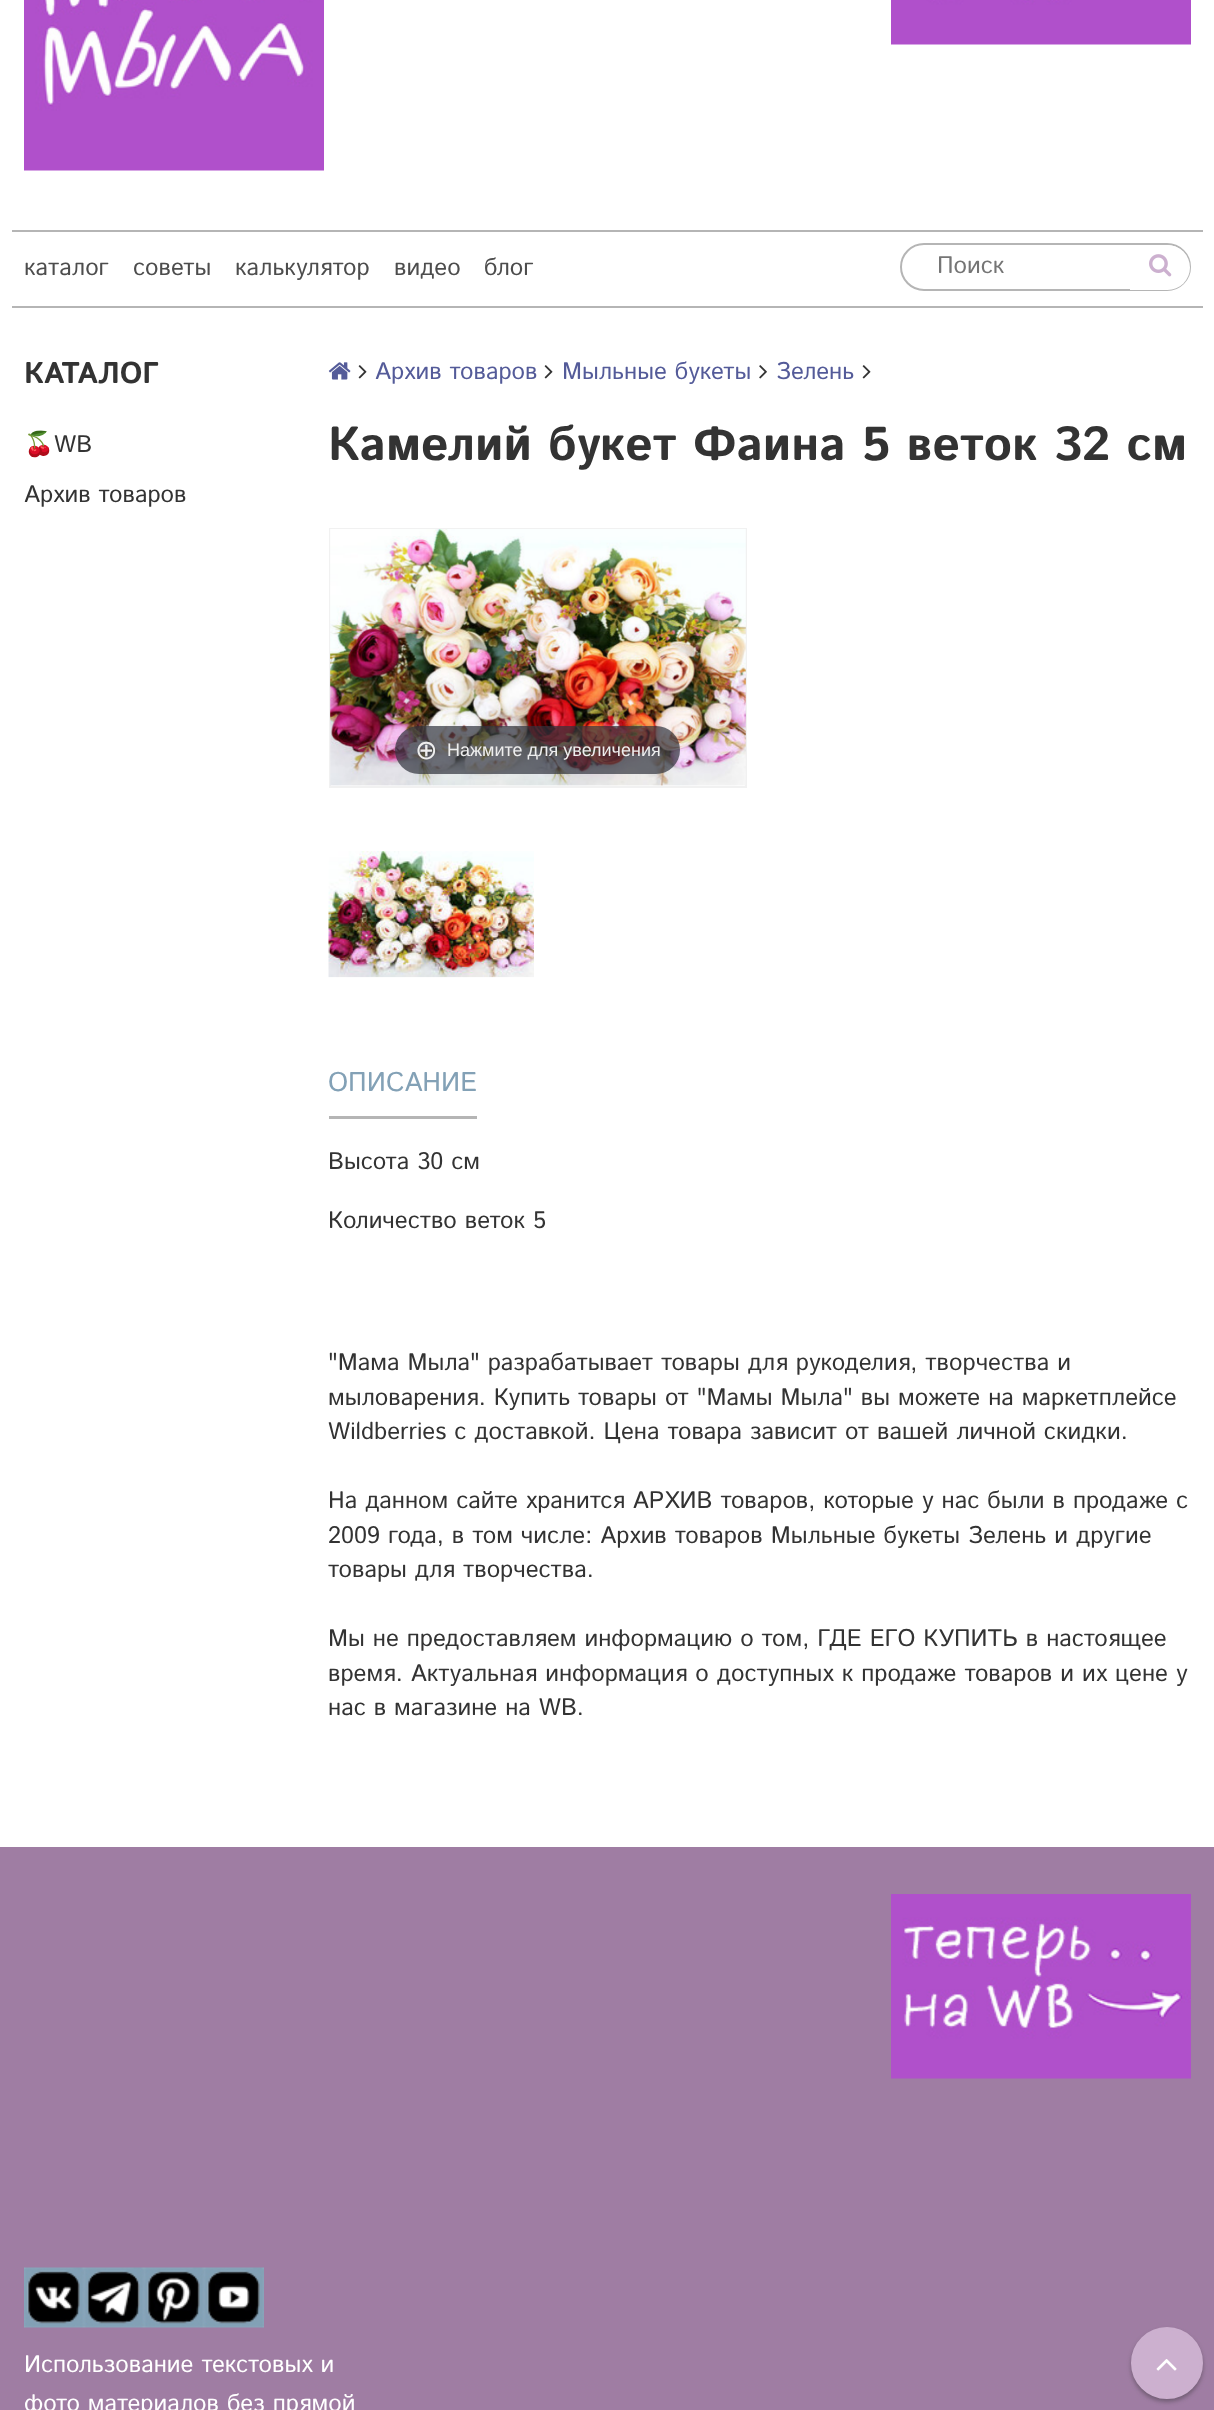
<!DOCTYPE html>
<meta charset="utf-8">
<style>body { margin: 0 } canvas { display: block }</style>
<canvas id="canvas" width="1214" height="2410"></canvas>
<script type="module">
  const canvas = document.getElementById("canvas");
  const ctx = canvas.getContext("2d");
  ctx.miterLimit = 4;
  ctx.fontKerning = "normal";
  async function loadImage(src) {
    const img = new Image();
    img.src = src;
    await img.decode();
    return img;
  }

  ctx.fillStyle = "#9f7da3";
  ctx.fillRect(0, 0, 1214, 2410);
  ctx.fillStyle = "#ffffff";
  ctx.fillRect(0, 0, 1214, 1847);
  ctx.drawImage(await loadImage("img1.png"), 24, 0, 300, 171);
  ctx.drawImage(await loadImage("img2.png"), 891, 0, 300, 45);
  ctx.fillStyle = "#b5b5b5";
  ctx.fillRect(12, 230, 1191, 2);
  ctx.fillRect(12, 306, 1191, 2);
  ctx.font = "24px Istok Web";
  ctx.fillStyle = "#4d4d4d";
  ctx.fillText("каталог", 24, 275);
  ctx.fillText("советы", 133, 275);
  ctx.fillText("калькулятор", 235, 275);
  ctx.fillText("видео", 394, 275);
  ctx.fillText("блог", 484, 275);
  ctx.beginPath();
  ctx.roundRect(901, 244, 289, 46, 23);
  ctx.strokeStyle = "#b5b5b5";
  ctx.lineWidth = 2;
  ctx.stroke();
  ctx.fillStyle = "#757575";
  ctx.fillText("Поиск", 937, 273);
  ctx.fillStyle = "#ffffff";
  ctx.beginPath();
  ctx.roundRect(1130, 245, 60, 45, [0, 22.5, 22.5, 0]);
  ctx.fill();
  ctx.drawImage(await loadImage("img3.png"), 1149, 254, 23, 23);
  ctx.font = "bold 30px Istok Web";
  ctx.fillStyle = "#333333";
  ctx.fillText("КАТАЛОГ", 24, 383);
  ctx.font = "24px Noto Color Emoji";
  ctx.fillText("🍒", 24, 452);
  ctx.font = "24px Istok Web";
  ctx.fillText("WB", 54, 452);
  ctx.fillText("Архив товаров", 24, 502);
  ctx.drawImage(await loadImage("img4.png"), 328, 362, 23, 18);
  ctx.drawImage(await loadImage("img5.png"), 358, 365, 9, 14);
  ctx.fillStyle = "#545b99";
  ctx.fillText("Архив товаров", 375, 379);
  ctx.drawImage(await loadImage("img5.png"), 544, 365, 9, 14);
  ctx.fillText("Мыльные букеты", 562, 379);
  ctx.drawImage(await loadImage("img6.png"), 759, 365, 8, 14);
  ctx.fillText("Зелень", 776, 379);
  ctx.drawImage(await loadImage("img5.png"), 862, 365, 9, 14);
  ctx.font = "bold 48px Istok Web";
  ctx.fillStyle = "#333333";
  ctx.fillText("Камелий букет Фаина 5 веток 32 см", 328, 460);
  ctx.strokeStyle = "#f1f1f1";
  ctx.strokeRect(330, 529, 416, 258);
  ctx.drawImage(await loadImage("img7.png"), 330, 529, 416, 257);
  ctx.fillStyle = "rgba(49, 51, 61, 0.7)";
  ctx.beginPath();
  ctx.roundRect(395, 726, 285, 48, 24);
  ctx.fill();
  ctx.font = "27px DejaVu Sans";
  ctx.fillStyle = "#eeeeee";
  ctx.fillText("⊕", 415, 759);
  ctx.font = "18px Liberation Sans";
  ctx.fillText("Нажмите для увеличения", 447, 756);
  ctx.drawImage(await loadImage("img8.png"), 328, 851, 206, 127);
  ctx.fillStyle = "#b5b5b5";
  ctx.fillRect(329, 1116, 148, 3);
  ctx.font = "27px Istok Web";
  ctx.fillStyle = "#83a1b6";
  ctx.fillText("ОПИСАНИЕ", 328, 1091);
  ctx.font = "24px Istok Web";
  ctx.fillStyle = "#333333";
  ctx.fillText("Высота 30 см", 328, 1169);
  ctx.fillText("Количество веток 5", 328, 1228);
  ctx.fillText("\"Мама Мыла\" разрабатывает товары для рукоделия, творчества и", 328, 1370);
  ctx.fillText("мыловарения. Купить товары от \"Мамы Мыла\" вы можете на маркетплейсе", 328, 1405);
  ctx.fillText("Wildberries с доставкой. Цена товара зависит от вашей личной скидки.", 328, 1439);
  ctx.fillText("На данном сайте хранится АРХИВ товаров, которые у нас были в продаже с", 328, 1508);
  ctx.fillText("2009 года, в том числе: Архив товаров Мыльные букеты Зелень и другие", 328, 1543);
  ctx.fillText("товары для творчества.", 328, 1577);
  ctx.fillText("Мы не предоставляем информацию о том, ГДЕ ЕГО КУПИТЬ в настоящее", 328, 1646);
  ctx.fillText("время. Актуальная информация о доступных к продаже товаров и их цене у", 328, 1681);
  ctx.fillText("нас в магазине на WB.", 328, 1715);
  ctx.drawImage(await loadImage("img9.png"), 891, 1894, 300, 185);
  ctx.drawImage(await loadImage("img10.png"), 24, 2267, 60, 61);
  ctx.drawImage(await loadImage("img11.png"), 84, 2267, 60, 61);
  ctx.drawImage(await loadImage("img12.png"), 144, 2267, 60, 61);
  ctx.drawImage(await loadImage("img13.png"), 204, 2267, 60, 61);
  ctx.fillStyle = "#ffffff";
  ctx.fillText("Использование текстовых и", 24, 2372);
  ctx.fillText("фото материалов без прямой", 24, 2411);
  ctx.fillStyle = "rgba(51, 51, 51, 0.42)";
  ctx.filter = "blur(2px)";
  ctx.beginPath();
  ctx.roundRect(1131, 2330, 72, 72, 36);
  ctx.fill();
  ctx.filter = "none";
  ctx.fillStyle = "#ccb0cf";
  ctx.beginPath();
  ctx.arc(1167, 2363, 34.5, 0, Math.PI * 2);
  ctx.fill();
  ctx.strokeStyle = "#ccb0cf";
  ctx.lineWidth = 3;
  ctx.stroke();
  ctx.drawImage(await loadImage("img14.png"), 1156, 2359, 21, 12);
</script>
